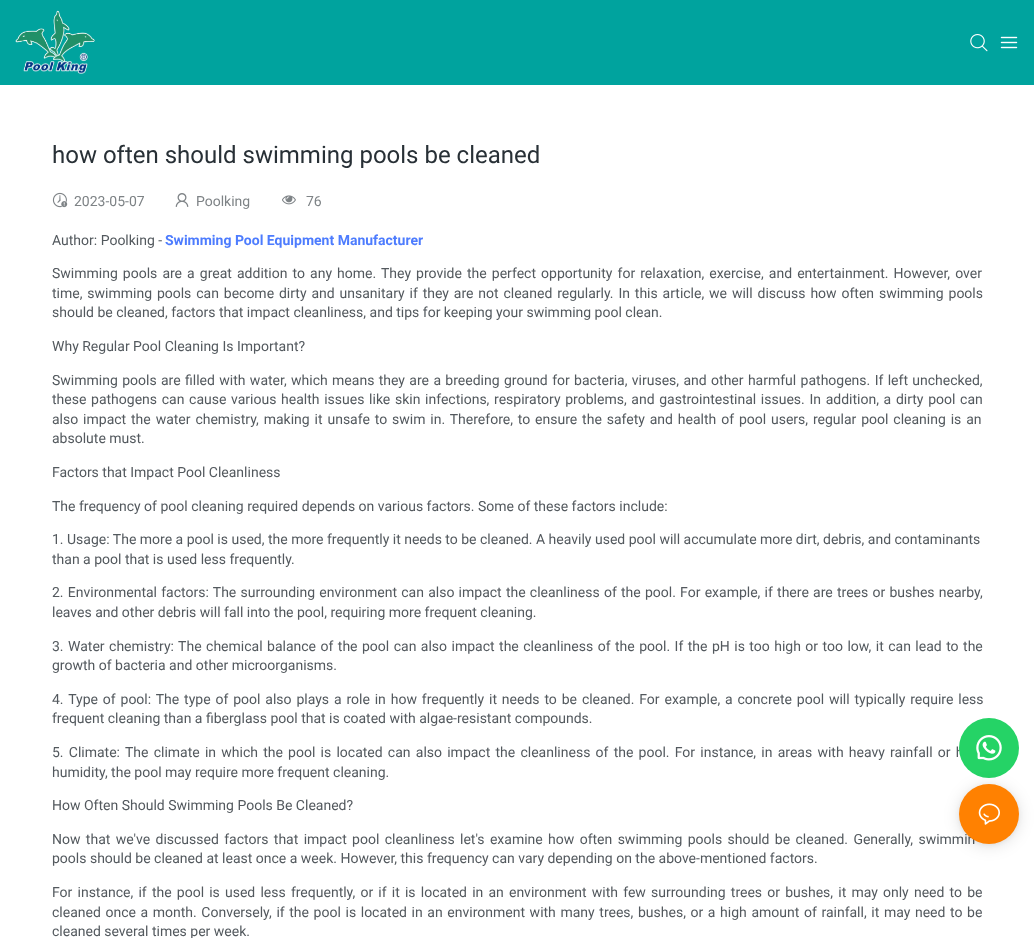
<!DOCTYPE html>
<meta charset="utf-8">
<style>body { margin: 0 } canvas { display: block }</style>
<canvas id="canvas" width="1034" height="938"></canvas>
<script type="module">
  const canvas = document.getElementById("canvas");
  const ctx = canvas.getContext("2d");
  ctx.miterLimit = 4;
  ctx.fontKerning = "normal";
  async function loadImage(src) {
    const img = new Image();
    img.src = src;
    await img.decode();
    return img;
  }

  ctx.fillStyle = "#ffffff";
  ctx.fillRect(0, 0, 1034, 938);
  ctx.fillStyle = "#00a39e";
  ctx.fillRect(0, 0, 1034, 85);
  ctx.drawImage(await loadImage("img1.png"), 15, 10, 80, 64);
  ctx.drawImage(await loadImage("img2.png"), 970, 34, 18, 18);
  ctx.drawImage(await loadImage("img3.png"), 1000, 36, 18, 13);
  ctx.font = "24px Roboto";
  ctx.fillStyle = "#283036";
  ctx.fillText("how often should swimming pools be cleaned", 52, 163);
  ctx.drawImage(await loadImage("img4.png"), 52, 192, 16, 16);
  ctx.font = "14px Roboto";
  ctx.fillStyle = "#7e8386";
  ctx.fillText("2023-05-07", 74, 206);
  ctx.drawImage(await loadImage("img5.png"), 175, 193, 14, 14);
  ctx.fillText("Poolking", 196, 206);
  ctx.drawImage(await loadImage("img6.png"), 282, 195, 14, 10);
  ctx.fillText("76", 306, 206);
  ctx.fillStyle = "#53595e";
  ctx.fillText("Author: Poolking -", 52, 245);
  ctx.font = "bold 14px Roboto";
  ctx.fillStyle = "#4d7cfe";
  ctx.fillText("Swimming Pool Equipment Manufacturer", 165, 245);
  ctx.wordSpacing = "1.6px";
  ctx.font = "14px Roboto";
  ctx.fillStyle = "#53595e";
  ctx.fillText("Swimming pools are a great addition to any home. They provide the perfect opportunity for relaxation, exercise, and entertainment. However, over", 52, 278);
  ctx.wordSpacing = "1.4px";
  ctx.fillText("time, swimming pools can become dirty and unsanitary if they are not cleaned regularly. In this article, we will discuss how often swimming pools", 52, 298);
  ctx.wordSpacing = "0px";
  ctx.fillText("should be cleaned, factors that impact cleanliness, and tips for keeping your swimming pool clean.", 52, 317);
  ctx.fillText("Why Regular Pool Cleaning Is Important?", 52, 351);
  ctx.wordSpacing = "0.9px";
  ctx.fillText("Swimming pools are filled with water, which means they are a breeding ground for bacteria, viruses, and other harmful pathogens. If left unchecked,", 52, 385);
  ctx.wordSpacing = "1.2px";
  ctx.fillText("these pathogens can cause various health issues like skin infections, respiratory problems, and gastrointestinal issues. In addition, a dirty pool can", 52, 404);
  ctx.wordSpacing = "1.4px";
  ctx.fillText("also impact the water chemistry, making it unsafe to swim in. Therefore, to ensure the safety and health of pool users, regular pool cleaning is an", 52, 424);
  ctx.wordSpacing = "0px";
  ctx.fillText("absolute must.", 52, 443);
  ctx.fillText("Factors that Impact Pool Cleanliness", 52, 477);
  ctx.fillText("The frequency of pool cleaning required depends on various factors. Some of these factors include:", 52, 511);
  ctx.fillText("1. Usage: The more a pool is used, the more frequently it needs to be cleaned. A heavily used pool will accumulate more dirt, debris, and contaminants", 52, 544);
  ctx.fillText("than a pool that is used less frequently.", 52, 564);
  ctx.wordSpacing = "0.75px";
  ctx.fillText("2. Environmental factors: The surrounding environment can also impact the cleanliness of the pool. For example, if there are trees or bushes nearby,", 52, 597);
  ctx.wordSpacing = "0px";
  ctx.fillText("leaves and other debris will fall into the pool, requiring more frequent cleaning.", 52, 617);
  ctx.wordSpacing = "1px";
  ctx.fillText("3. Water chemistry: The chemical balance of the pool can also impact the cleanliness of the pool. If the pH is too high or too low, it can lead to the", 52, 651);
  ctx.wordSpacing = "0px";
  ctx.fillText("growth of bacteria and other microorganisms.", 52, 670);
  ctx.wordSpacing = "1.4px";
  ctx.fillText("4. Type of pool: The type of pool also plays a role in how frequently it needs to be cleaned. For example, a concrete pool will typically require less", 52, 704);
  ctx.wordSpacing = "0px";
  ctx.fillText("frequent cleaning than a fiberglass pool that is coated with algae-resistant compounds.", 52, 723);
  ctx.wordSpacing = "1.75px";
  ctx.fillText("5. Climate: The climate in which the pool is located can also impact the cleanliness of the pool. For instance, in areas with heavy rainfall or h", 52, 757);
  ctx.wordSpacing = "0px";
  ctx.fillText("humidity, the pool may require more frequent cleaning.", 52, 777);
  ctx.fillText("How Often Should Swimming Pools Be Cleaned?", 52, 810);
  ctx.wordSpacing = "1.9px";
  ctx.fillText("Now that we've discussed factors that impact pool cleanliness let's examine how often swimming pools should be cleaned. Generally, swimmin", 52, 844);
  ctx.wordSpacing = "0px";
  ctx.fillText("pools should be cleaned at least once a week. However, this frequency can vary depending on the above-mentioned factors.", 52, 863);
  ctx.wordSpacing = "1.7px";
  ctx.fillText("For instance, if the pool is used less frequently, or if it is located in an environment with few surrounding trees or bushes, it may only need to be", 52, 897);
  ctx.wordSpacing = "1.15px";
  ctx.fillText("cleaned once a month. Conversely, if the pool is located in an environment with many trees, bushes, or a high amount of rainfall, it may need to be", 52, 917);
  ctx.wordSpacing = "0px";
  ctx.fillText("cleaned several times per week.", 52, 936);
  ctx.fillStyle = "#25d366";
  ctx.beginPath();
  ctx.arc(989, 748, 30, 0, Math.PI * 2);
  ctx.fill();
  ctx.drawImage(await loadImage("img7.png"), 976, 735, 26, 26);
  ctx.fillStyle = "rgba(0, 0, 0, 0.12)";
  ctx.filter = "blur(8px)";
  ctx.beginPath();
  ctx.roundRect(959, 786, 60, 60, 30);
  ctx.fill();
  ctx.filter = "none";
  ctx.fillStyle = "rgba(0, 0, 0, 0.06)";
  ctx.filter = "blur(2px)";
  ctx.beginPath();
  ctx.roundRect(959, 785, 60, 60, 30);
  ctx.fill();
  ctx.filter = "none";
  ctx.fillStyle = "#ff8101";
  ctx.beginPath();
  ctx.arc(989, 814, 30, 0, Math.PI * 2);
  ctx.fill();
  ctx.drawImage(await loadImage("img8.png"), 978, 803, 22, 22);
</script>
